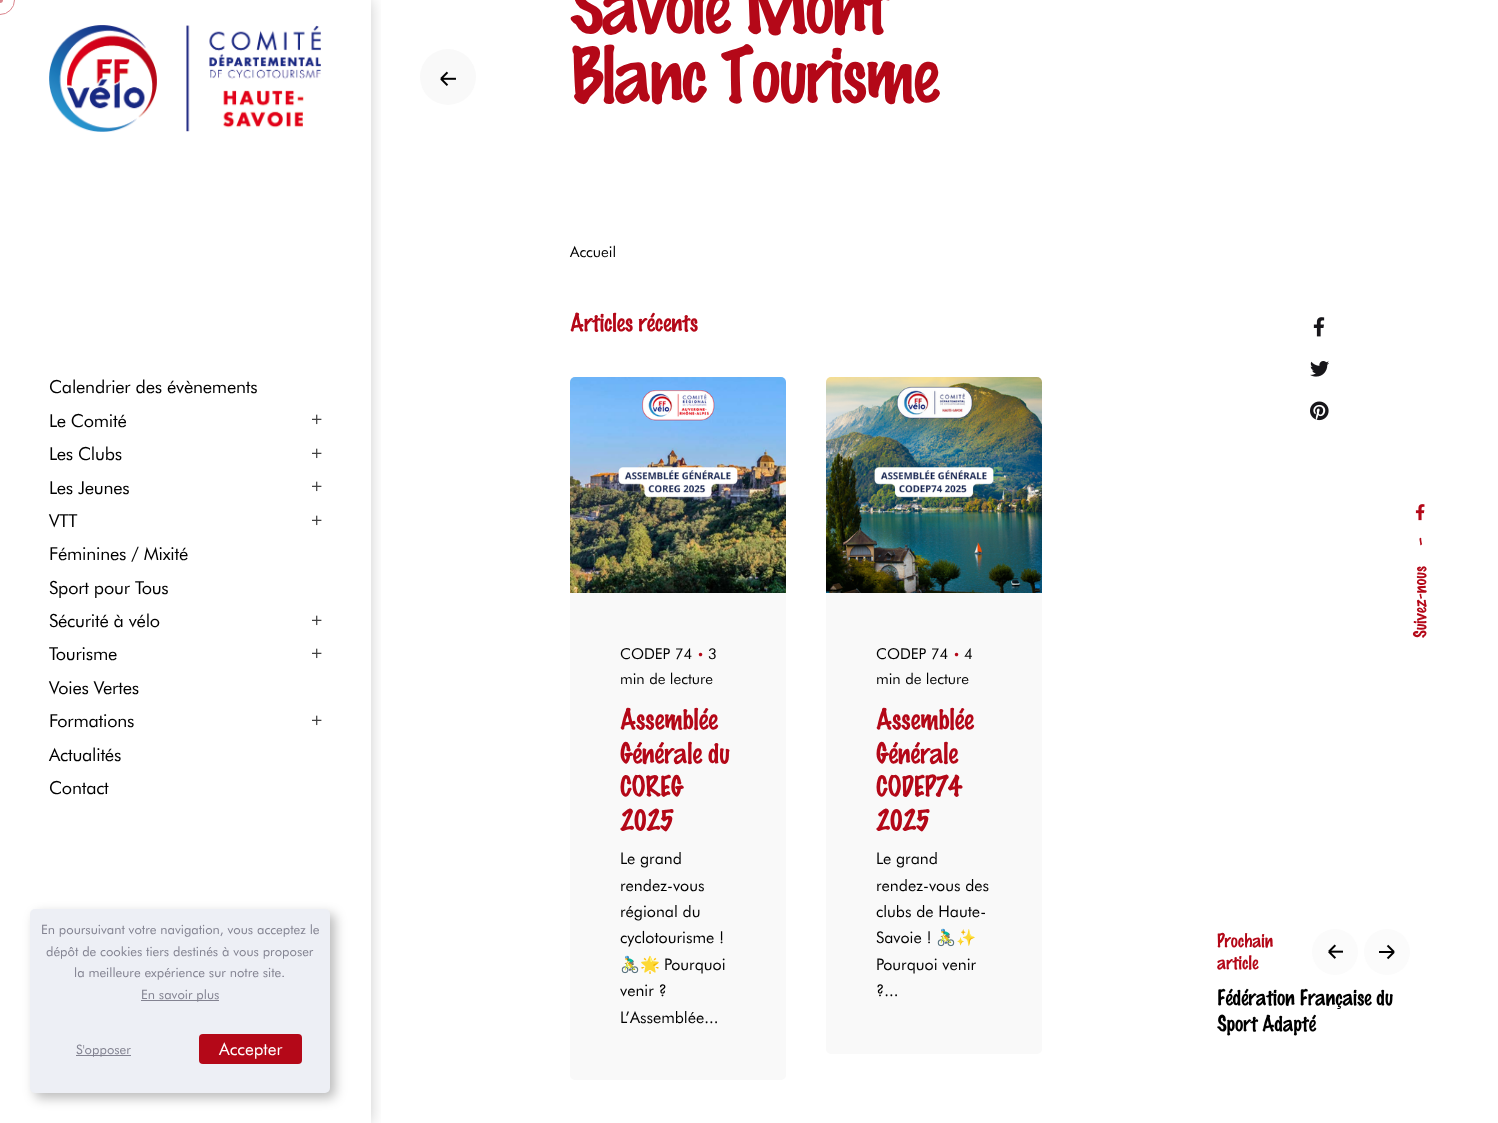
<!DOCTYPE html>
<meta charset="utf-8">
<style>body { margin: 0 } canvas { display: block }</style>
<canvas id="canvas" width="1498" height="1123"></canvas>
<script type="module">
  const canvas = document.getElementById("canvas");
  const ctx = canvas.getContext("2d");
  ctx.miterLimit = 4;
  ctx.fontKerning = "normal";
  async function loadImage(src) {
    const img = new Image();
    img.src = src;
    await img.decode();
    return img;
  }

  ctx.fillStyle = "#ffffff";
  ctx.fillRect(0, 0, 1498, 1123);
  ctx.save();
  ctx.beginPath();
  ctx.rect(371, 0, 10, 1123);
  ctx.clip();
  ctx.fillStyle = "rgba(0, 0, 0, 0.2)";
  ctx.filter = "blur(7.5px)";
  ctx.beginPath();
  ctx.rect(0, 0, 371, 1123);
  ctx.fill();
  ctx.filter = "none";
  ctx.restore();
  ctx.beginPath();
  ctx.arc(0, 0, 14.5, 0, Math.PI * 2);
  ctx.strokeStyle = "#da848c";
  ctx.stroke();
  ctx.fillStyle = "#da848c";
  ctx.beginPath();
  ctx.arc(0, 0, 3, 0, Math.PI * 2);
  ctx.fill();
  ctx.drawImage(await loadImage("img1.png"), 49, 25, 272, 107);
  ctx.letterSpacing = "-0.2px";
  ctx.font = "18px Futura";
  ctx.fillStyle = "#000000";
  ctx.fillText("Calendrier des évènements", 49, 393);
  ctx.fillText("Le Comité", 49, 427);
  ctx.drawImage(await loadImage("img2.png"), 312, 414, 10, 11);
  ctx.fillText("Les Clubs", 49, 460);
  ctx.drawImage(await loadImage("img2.png"), 312, 448, 10, 11);
  ctx.fillText("Les Jeunes", 49, 494);
  ctx.drawImage(await loadImage("img2.png"), 312, 481, 10, 11);
  ctx.fillText("VTT", 49, 527);
  ctx.drawImage(await loadImage("img2.png"), 312, 515, 10, 11);
  ctx.fillText("Féminines / Mixité", 49, 560);
  ctx.fillText("Sport pour Tous", 49, 594);
  ctx.fillText("Sécurité à vélo", 49, 627);
  ctx.drawImage(await loadImage("img2.png"), 312, 615, 10, 11);
  ctx.fillText("Tourisme", 49, 660);
  ctx.drawImage(await loadImage("img2.png"), 312, 648, 10, 11);
  ctx.fillText("Voies Vertes", 49, 694);
  ctx.fillText("Formations", 49, 727);
  ctx.drawImage(await loadImage("img2.png"), 312, 715, 10, 11);
  ctx.fillText("Actualités", 49, 761);
  ctx.fillText("Contact", 49, 794);
  ctx.fillStyle = "#f9f9f9";
  ctx.beginPath();
  ctx.arc(448, 77, 28, 0, Math.PI * 2);
  ctx.fill();
  ctx.drawImage(await loadImage("img3.png"), 440, 71, 16, 15);
  ctx.letterSpacing = "-2.1px";
  ctx.font = "500 69.5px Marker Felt";
  ctx.fillStyle = "#b40818";
  ctx.fillText("Savoie Mont", 570, 32);
  ctx.fillText("Blanc Tourisme", 570, 101);
  ctx.letterSpacing = "0px";
  ctx.font = "15px Futura";
  ctx.fillStyle = "#000000";
  ctx.fillText("Accueil", 570, 257);
  ctx.letterSpacing = "-0.25px";
  ctx.font = "500 22.5px Marker Felt";
  ctx.fillStyle = "#b40818";
  ctx.fillText("Articles récents", 570, 331);
  ctx.drawImage(await loadImage("img4.png"), 570, 377, 216, 216);
  ctx.fillStyle = "#f9f9f9";
  ctx.beginPath();
  ctx.roundRect(570, 593, 216, 487, [0, 0, 5, 5]);
  ctx.fill();
  ctx.letterSpacing = "0px";
  ctx.font = "15px Futura";
  ctx.fillStyle = "#000000";
  ctx.fillText("CODEP 74", 620, 659);
  ctx.font = "12px Futura";
  ctx.fillStyle = "#b40818";
  ctx.fillText("•", 697, 659);
  ctx.font = "15px Futura";
  ctx.fillStyle = "#000000";
  ctx.fillText("3", 708, 659);
  ctx.fillText("min de lecture", 620, 684);
  ctx.letterSpacing = "-0.25px";
  ctx.font = "500 26px Marker Felt";
  ctx.fillStyle = "#b40818";
  ctx.fillText("Assemblée", 620, 729);
  ctx.fillText("Générale du", 620, 763);
  ctx.fillText("COREG", 620, 796);
  ctx.fillText("2025", 620, 830);
  ctx.letterSpacing = "0px";
  ctx.font = "16px Futura";
  ctx.fillStyle = "#000000";
  ctx.fillText("Le grand", 620, 864);
  ctx.fillText("rendez-vous", 620, 891);
  ctx.fillText("régional du", 620, 917);
  ctx.fillText("cyclotourisme !", 620, 943);
  ctx.font = "16px Noto Color Emoji";
  ctx.fillText("🚴‍♂️🌟", 620, 970);
  ctx.font = "16px Futura";
  ctx.fillText("Pourquoi", 664, 970);
  ctx.fillText("venir ?", 620, 996);
  ctx.fillText("L’Assemblée...", 620, 1023);
  ctx.drawImage(await loadImage("img5.png"), 826, 377, 216, 216);
  ctx.fillStyle = "#f9f9f9";
  ctx.beginPath();
  ctx.roundRect(826, 593, 216, 461, [0, 0, 5, 5]);
  ctx.fill();
  ctx.font = "15px Futura";
  ctx.fillStyle = "#000000";
  ctx.fillText("CODEP 74", 876, 659);
  ctx.font = "12px Futura";
  ctx.fillStyle = "#b40818";
  ctx.fillText("•", 953, 659);
  ctx.font = "15px Futura";
  ctx.fillStyle = "#000000";
  ctx.fillText("4", 964, 659);
  ctx.fillText("min de lecture", 876, 684);
  ctx.letterSpacing = "-0.25px";
  ctx.font = "500 26px Marker Felt";
  ctx.fillStyle = "#b40818";
  ctx.fillText("Assemblée", 876, 729);
  ctx.fillText("Générale", 876, 763);
  ctx.fillText("CODEP74", 876, 796);
  ctx.fillText("2025", 876, 830);
  ctx.letterSpacing = "0px";
  ctx.font = "16px Futura";
  ctx.fillStyle = "#000000";
  ctx.fillText("Le grand", 876, 864);
  ctx.fillText("rendez-vous des", 876, 891);
  ctx.fillText("clubs de Haute-", 876, 917);
  ctx.fillText("Savoie !", 876, 943);
  ctx.font = "16px Noto Color Emoji";
  ctx.fillText("🚴‍♂️✨", 936, 943);
  ctx.font = "16px Futura";
  ctx.fillText("Pourquoi venir", 876, 970);
  ctx.fillText("?...", 876, 996);
  ctx.drawImage(await loadImage("img6.png"), 1313, 317, 12, 20);
  ctx.drawImage(await loadImage("img7.png"), 1310, 361, 19, 16);
  ctx.drawImage(await loadImage("img8.png"), 1310, 401, 19, 20);
  ctx.font = "500 17px Marker Felt";
  ctx.fillStyle = "#b40818";
  ctx.fillText("Prochain", 1217, 947);
  ctx.fillText("article", 1217, 969);
  ctx.fillStyle = "#fbfbfb";
  ctx.beginPath();
  ctx.arc(1335, 952, 23, 0, Math.PI * 2);
  ctx.fill();
  ctx.drawImage(await loadImage("img9.png"), 1328, 944, 15, 15);
  ctx.beginPath();
  ctx.arc(1387, 952, 23, 0, Math.PI * 2);
  ctx.fill();
  ctx.drawImage(await loadImage("img10.png"), 1379, 944, 16, 16);
  ctx.letterSpacing = "-0.2px";
  ctx.font = "500 20px Marker Felt";
  ctx.fillStyle = "#000000";
  ctx.fillText("Fédération Française du", 1217, 1005);
  ctx.fillText("Sport Adapté", 1217, 1031);
  ctx.drawImage(await loadImage("img11.png"), 1415, 504, 10, 17);
  ctx.letterSpacing = "0px";
  ctx.font = "500 16px Marker Felt";
  ctx.fillStyle = "#b40818";
  ctx.save();
  ctx.translate(1426, 546);
  ctx.rotate(-90 * Math.PI / 180);
  ctx.fillText("–", 0, 0);
  ctx.restore();
  ctx.save();
  ctx.translate(1426, 638);
  ctx.rotate(-90 * Math.PI / 180);
  ctx.fillText("Suivez-nous", 0, 0);
  ctx.restore();
  ctx.fillStyle = "rgba(0, 0, 0, 0.27)";
  ctx.filter = "blur(6px)";
  ctx.beginPath();
  ctx.roundRect(35, 914, 300, 184, 5);
  ctx.fill();
  ctx.filter = "none";
  ctx.fillStyle = "#edeff5";
  ctx.beginPath();
  ctx.roundRect(30, 909, 300, 184, 5);
  ctx.fill();
  ctx.font = "13px Futura";
  ctx.fillStyle = "#838391";
  ctx.fillText("En poursuivant votre navigation, vous acceptez le", 41, 934);
  ctx.fillText("dépôt de cookies tiers destinés à vous proposer", 46, 956);
  ctx.fillText("la meilleure expérience sur notre site.", 74, 977);
  ctx.fillRect(141, 1000, 78, 1);
  ctx.fillText("En savoir plus", 141, 999);
  ctx.fillRect(76, 1055, 55, 1);
  ctx.fillText("S'opposer", 76, 1054);
  ctx.fillStyle = "#b40818";
  ctx.beginPath();
  ctx.roundRect(199, 1034, 103, 30, 4);
  ctx.fill();
  ctx.font = "17px Futura";
  ctx.fillStyle = "#ffffff";
  ctx.fillText("Accepter", 219, 1055);
</script>
